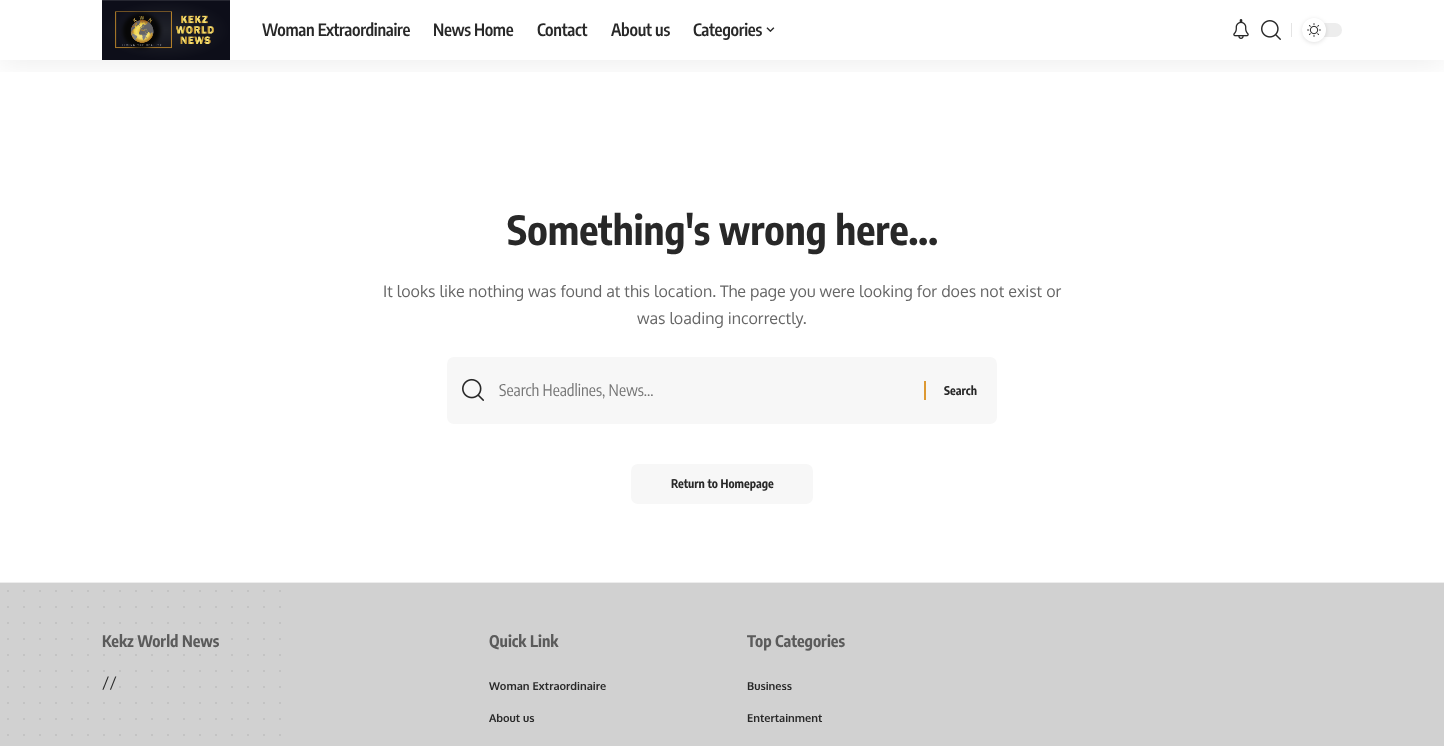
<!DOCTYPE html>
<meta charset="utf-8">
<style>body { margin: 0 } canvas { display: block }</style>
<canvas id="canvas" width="1444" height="746"></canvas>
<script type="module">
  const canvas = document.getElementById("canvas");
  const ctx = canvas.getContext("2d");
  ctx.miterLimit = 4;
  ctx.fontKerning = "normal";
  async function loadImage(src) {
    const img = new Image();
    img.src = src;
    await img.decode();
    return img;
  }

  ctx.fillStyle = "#ffffff";
  ctx.fillRect(0, 0, 1444, 746);
  ctx.save();
  ctx.beginPath();
  ctx.rect(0, 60, 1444, 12);
  ctx.clip();
  ctx.fillStyle = "rgba(0, 0, 0, 0.07)";
  ctx.filter = "blur(15px)";
  ctx.beginPath();
  ctx.rect(0, 4, 1444, 60);
  ctx.fill();
  ctx.filter = "none";
  ctx.restore();
  ctx.drawImage(await loadImage("img1.png"), 102, 0, 128, 60);
  ctx.letterSpacing = "-0.3px";
  ctx.font = "600 17px Encode Sans Condensed";
  ctx.fillStyle = "#282828";
  ctx.fillText("Woman Extraordinaire", 262, 36);
  ctx.fillText("News Home", 433, 36);
  ctx.fillText("Contact", 537, 36);
  ctx.fillText("About us", 611, 36);
  ctx.fillText("Categories", 693, 36);
  ctx.drawImage(await loadImage("img2.png"), 766, 27, 9, 5);
  ctx.drawImage(await loadImage("img3.png"), 1233, 19, 16, 20);
  ctx.drawImage(await loadImage("img4.png"), 1261, 20, 20, 20);
  ctx.fillStyle = "#e4e4e4";
  ctx.fillRect(1291, 23, 1, 14);
  ctx.fillStyle = "#ededed";
  ctx.beginPath();
  ctx.roundRect(1302, 23, 40, 14, 7);
  ctx.fill();
  ctx.fillStyle = "rgba(0, 0, 0, 0.12)";
  ctx.filter = "blur(2px)";
  ctx.beginPath();
  ctx.roundRect(1302, 19, 24, 24, 12);
  ctx.fill();
  ctx.filter = "none";
  ctx.fillStyle = "#ffffff";
  ctx.beginPath();
  ctx.arc(1314, 30, 12, 0, Math.PI * 2);
  ctx.fill();
  ctx.drawImage(await loadImage("img5.png"), 1307, 23, 14, 14);
  ctx.letterSpacing = "0px";
  ctx.font = "bold 40px Encode Sans Condensed";
  ctx.fillStyle = "#282828";
  ctx.fillText("Something's wrong here...", 507, 245);
  ctx.font = "16px Oxygen";
  ctx.fillStyle = "#666666";
  ctx.fillText("It looks like nothing was found at this location. The page you were looking for does not exist or", 383, 297);
  ctx.fillText("was loading incorrectly.", 637, 324);
  ctx.fillStyle = "#f7f7f7";
  ctx.beginPath();
  ctx.roundRect(447, 357, 550, 67, 7);
  ctx.fill();
  ctx.drawImage(await loadImage("img6.png"), 462, 378, 22, 23);
  ctx.font = "16px Encode Sans Condensed";
  ctx.fillStyle = "#757575";
  ctx.fillText("Search Headlines, News...", 499, 396);
  ctx.fillStyle = "#dd9933";
  ctx.fillRect(924, 381, 2, 19);
  ctx.font = "bold 12px Encode Sans Condensed";
  ctx.fillStyle = "#282828";
  ctx.fillText("Search", 944, 395);
  ctx.fillStyle = "#f7f7f7";
  ctx.beginPath();
  ctx.roundRect(631, 464, 182, 40, 7);
  ctx.fill();
  ctx.fillStyle = "#282828";
  ctx.fillText("Return to Homepage", 671, 488);
  ctx.fillStyle = "#ededed";
  ctx.fillRect(0, 582, 1444, 1);
  ctx.fillStyle = "#d1d1d1";
  ctx.fillRect(0, 583, 1444, 163);
  ctx.beginPath();
  ctx.moveTo(8, 591);
  ctx.lineTo(280.2, 591);
  ctx.strokeStyle = "#afafaf";
  ctx.lineWidth = 1.5;
  ctx.lineCap = "round";
  ctx.setLineDash([0, 16]);
  ctx.stroke();
  ctx.beginPath();
  ctx.moveTo(8, 607);
  ctx.lineTo(280.2, 607);
  ctx.stroke();
  ctx.beginPath();
  ctx.moveTo(8, 623);
  ctx.lineTo(280.2, 623);
  ctx.stroke();
  ctx.beginPath();
  ctx.moveTo(8, 639);
  ctx.lineTo(280.2, 639);
  ctx.stroke();
  ctx.beginPath();
  ctx.moveTo(8, 655);
  ctx.lineTo(280.2, 655);
  ctx.stroke();
  ctx.beginPath();
  ctx.moveTo(8, 671);
  ctx.lineTo(280.2, 671);
  ctx.stroke();
  ctx.beginPath();
  ctx.moveTo(8, 687);
  ctx.lineTo(280.2, 687);
  ctx.stroke();
  ctx.beginPath();
  ctx.moveTo(8, 703);
  ctx.lineTo(280.2, 703);
  ctx.stroke();
  ctx.beginPath();
  ctx.moveTo(8, 719);
  ctx.lineTo(280.2, 719);
  ctx.stroke();
  ctx.beginPath();
  ctx.moveTo(8, 735);
  ctx.lineTo(280.2, 735);
  ctx.stroke();
  ctx.font = "bold 16px Encode Sans Condensed";
  ctx.fillStyle = "#5b5b5b";
  ctx.fillText("Kekz World News", 102, 647);
  ctx.font = "16px Oxygen";
  ctx.fillStyle = "#282828";
  ctx.fillText("//", 102, 688);
  ctx.font = "bold 16px Encode Sans Condensed";
  ctx.fillStyle = "#5b5b5b";
  ctx.fillText("Quick Link", 489, 647);
  ctx.font = "bold 11px Oxygen";
  ctx.fillStyle = "#282828";
  ctx.fillText("Woman Extraordinaire", 489, 690);
  ctx.fillText("About us", 489, 722);
  ctx.font = "bold 16px Encode Sans Condensed";
  ctx.fillStyle = "#5b5b5b";
  ctx.fillText("Top Categories", 747, 647);
  ctx.font = "bold 11px Oxygen";
  ctx.fillStyle = "#282828";
  ctx.fillText("Business", 747, 690);
  ctx.fillText("Entertainment", 747, 722);
</script>
